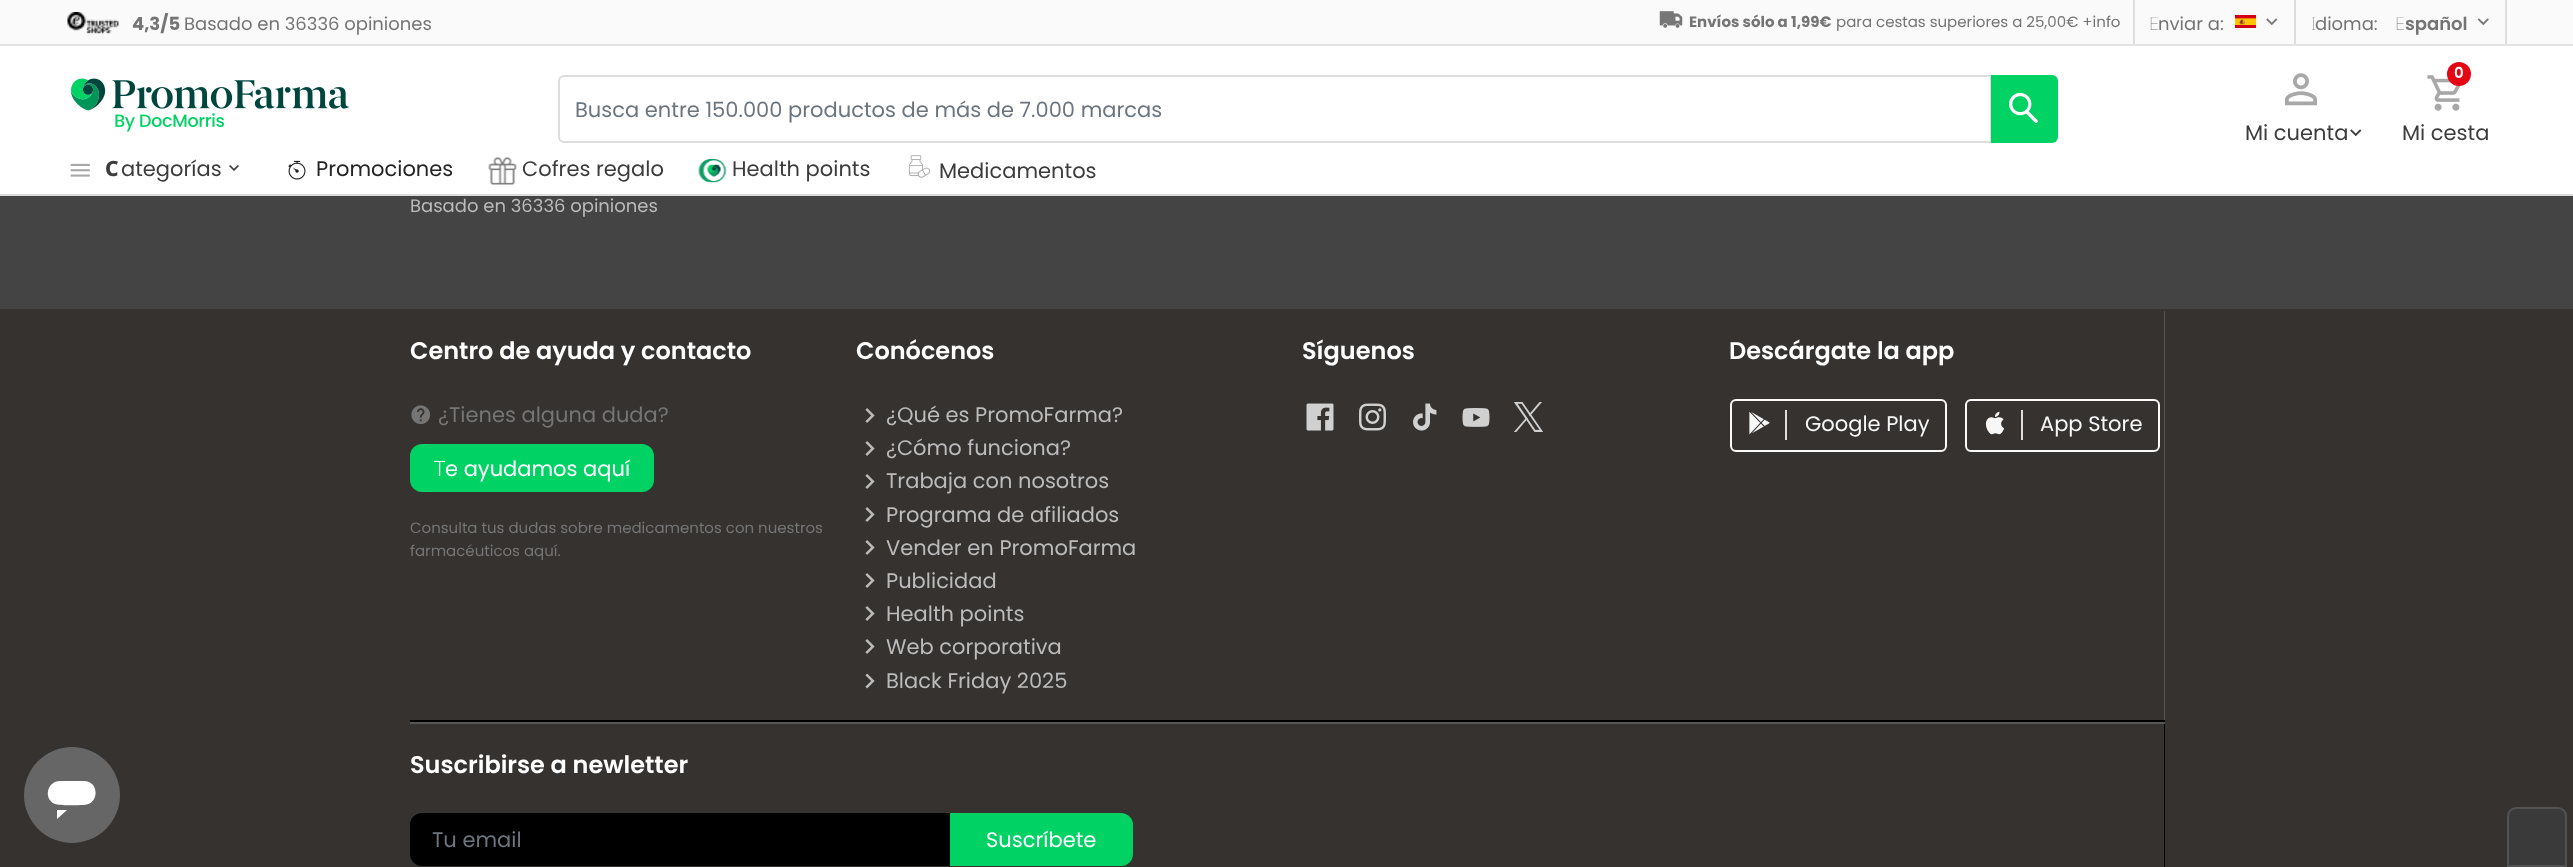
<!DOCTYPE html>
<meta charset="utf-8">
<style>body { margin: 0 } canvas { display: block }</style>
<canvas id="canvas" width="2573" height="867"></canvas>
<script type="module">
  const canvas = document.getElementById("canvas");
  const ctx = canvas.getContext("2d");
  ctx.miterLimit = 4;
  ctx.fontKerning = "normal";
  async function loadImage(src) {
    const img = new Image();
    img.src = src;
    await img.decode();
    return img;
  }

  ctx.fillStyle = "#353230";
  ctx.fillRect(0, 0, 2573, 867);
  ctx.fillStyle = "#666666";
  ctx.beginPath();
  ctx.arc(72, 795, 48, 0, Math.PI * 2);
  ctx.fill();
  ctx.fillStyle = "#ffffff";
  ctx.beginPath();
  ctx.moveTo(67, 810);
  ctx.lineTo(57, 819);
  ctx.lineTo(57, 810);
  ctx.closePath();
  ctx.moveTo(84, 781);
  ctx.bezierCurveTo(99, 781, 100, 804, 84, 805);
  ctx.bezierCurveTo(78, 805, 60, 806, 55, 804);
  ctx.bezierCurveTo(43, 799, 47, 781, 60, 781);
  ctx.closePath();
  ctx.fill();
  ctx.fillRect(0, 46, 2573, 148);
  ctx.fillStyle = "#dddddd";
  ctx.fillRect(0, 194, 2573, 2);
  ctx.fillStyle = "#fafafa";
  ctx.fillRect(0, 0, 2573, 44);
  ctx.fillStyle = "#e3e3e3";
  ctx.fillRect(0, 44, 2573, 2);
  ctx.drawImage(await loadImage("img1.png"), 67, 12, 52, 22);
  ctx.font = "bold 18px Poppins";
  ctx.fillStyle = "#757575";
  ctx.fillText("4,3/5", 132, 30);
  ctx.font = "18px Poppins";
  ctx.fillText("Basado en 36336 opiniones", 184, 30);
  ctx.drawImage(await loadImage("img2.png"), 1659, 11, 24, 17);
  ctx.font = "bold 15px Poppins";
  ctx.fillText("Envíos sólo a 1,99€", 1689, 27);
  ctx.font = "15px Poppins";
  ctx.fillText("para cestas superiores a 25,00€ +info", 1836, 27);
  ctx.fillStyle = "#dddddd";
  ctx.fillRect(2133, 0, 2, 44);
  ctx.font = "100 18px Noto Sans";
  ctx.fillStyle = "#757575";
  ctx.fillText("E", 2149, 30);
  ctx.font = "18px Poppins";
  ctx.fillText("nviar a:", 2158, 30);
  ctx.drawImage(await loadImage("img3.png"), 2235, 15, 22, 13);
  ctx.drawImage(await loadImage("img4.png"), 2266, 18, 12, 8);
  ctx.fillStyle = "#dddddd";
  ctx.fillRect(2505, 0, 2, 44);
  ctx.fillRect(2294, 0, 2, 44);
  ctx.font = "100 18px Noto Sans";
  ctx.fillStyle = "#757575";
  ctx.fillText("I", 2311, 30);
  ctx.font = "18px Poppins";
  ctx.fillText("dioma:", 2315, 30);
  ctx.font = "100 18px Noto Sans";
  ctx.fillText("E", 2395, 30);
  ctx.font = "600 18px Poppins";
  ctx.fillText("spañol", 2405, 30);
  ctx.drawImage(await loadImage("img5.png"), 2477, 18, 12, 8);
  ctx.drawImage(await loadImage("img6.png"), 70, 78, 279, 54);
  ctx.beginPath();
  ctx.roundRect(559, 76, 1432, 66, [5, 0, 0, 5]);
  ctx.strokeStyle = "#dddddd";
  ctx.lineWidth = 2;
  ctx.stroke();
  ctx.font = "21px Poppins";
  ctx.fillStyle = "#6c757d";
  ctx.fillText("Busca entre 150.000 productos de más de 7.000 marcas", 575, 117);
  ctx.fillStyle = "#00d264";
  ctx.beginPath();
  ctx.roundRect(1991, 75, 67, 68, [0, 6, 6, 0]);
  ctx.fill();
  ctx.drawImage(await loadImage("img7.png"), 2009, 92, 29, 31);
  ctx.drawImage(await loadImage("img8.png"), 2285, 73, 32, 33);
  ctx.fillStyle = "#3c3c3c";
  ctx.fillText("Mi cuenta", 2245, 140);
  ctx.drawImage(await loadImage("img9.png"), 2350, 129, 12, 8);
  ctx.drawImage(await loadImage("img10.png"), 2427, 75, 34, 36);
  ctx.fillStyle = "#e30613";
  ctx.beginPath();
  ctx.arc(2459, 74, 12, 0, Math.PI * 2);
  ctx.fill();
  ctx.font = "600 15px Poppins";
  ctx.fillStyle = "#ffffff";
  ctx.fillText("0", 2454, 78);
  ctx.font = "21px Poppins";
  ctx.fillStyle = "#3c3c3c";
  ctx.fillText("Mi cesta", 2402, 140);
  ctx.drawImage(await loadImage("img11.png"), 70, 163, 20, 14);
  ctx.font = "800 21px Noto Sans";
  ctx.fillText("C", 105, 176);
  ctx.font = "21px Poppins";
  ctx.fillText("ategorías", 121, 176);
  ctx.drawImage(await loadImage("img12.png"), 229, 165, 10, 6);
  ctx.drawImage(await loadImage("img13.png"), 288, 160, 18, 20);
  ctx.fillStyle = "#242424";
  ctx.fillText("Promociones", 316, 176);
  ctx.drawImage(await loadImage("img14.png"), 488, 157, 29, 28);
  ctx.fillStyle = "#3c3c3c";
  ctx.fillText("Cofres regalo", 522, 176);
  ctx.drawImage(await loadImage("img15.png"), 698, 159, 29, 24);
  ctx.fillText("Health points", 732, 176);
  ctx.drawImage(await loadImage("img16.png"), 908, 155, 22, 23);
  ctx.fillText("Medicamentos", 939, 178);
  ctx.fillStyle = "#444444";
  ctx.fillRect(0, 196, 2573, 113);
  ctx.font = "18px Poppins";
  ctx.fillStyle = "#bbbbbb";
  ctx.fillText("Basado en 36336 opiniones", 410, 212);
  ctx.fillStyle = "#565656";
  ctx.beginPath();
  ctx.moveTo(410, 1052);
  ctx.lineTo(410, 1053);
  ctx.lineTo(2165, 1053);
  ctx.lineTo(2165, 311);
  ctx.lineTo(2164, 311);
  ctx.lineTo(2164, 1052);
  ctx.closePath();
  ctx.fill();
  ctx.font = "600 24px Poppins";
  ctx.fillStyle = "#ffffff";
  ctx.fillText("Centro de ayuda y contacto", 410, 359);
  ctx.drawImage(await loadImage("img17.png"), 411, 405, 20, 20);
  ctx.font = "21px Poppins";
  ctx.fillStyle = "#757575";
  ctx.fillText("¿Tienes alguna duda?", 438, 422);
  ctx.fillStyle = "#00d264";
  ctx.beginPath();
  ctx.roundRect(411, 445, 242, 46, 11);
  ctx.fill();
  ctx.strokeStyle = "#00d264";
  ctx.stroke();
  ctx.font = "300 21px Noto Sans";
  ctx.fillStyle = "#ffffff";
  ctx.fillText("T", 434, 476);
  ctx.font = "21px Poppins";
  ctx.fillText("e ayudamos aquí", 445, 476);
  ctx.font = "15px Poppins";
  ctx.fillStyle = "#757575";
  ctx.fillText("Consulta tus dudas sobre medicamentos con nuestros", 410, 533);
  ctx.fillText("farmacéuticos aquí.", 410, 556);
  ctx.font = "600 24px Poppins";
  ctx.fillStyle = "#ffffff";
  ctx.fillText("Conócenos", 856, 359);
  ctx.drawImage(await loadImage("img18.png"), 865, 408, 10, 15);
  ctx.font = "21px Poppins";
  ctx.fillStyle = "#bbbbbb";
  ctx.fillText("¿Qué es PromoFarma?", 886, 422);
  ctx.drawImage(await loadImage("img18.png"), 865, 441, 10, 15);
  ctx.fillText("¿Cómo funciona?", 886, 455);
  ctx.drawImage(await loadImage("img18.png"), 865, 474, 10, 15);
  ctx.fillText("Trabaja con nosotros", 886, 488);
  ctx.drawImage(await loadImage("img18.png"), 865, 507, 10, 15);
  ctx.fillText("Programa de afiliados", 886, 522);
  ctx.drawImage(await loadImage("img18.png"), 865, 540, 10, 15);
  ctx.fillText("Vender en PromoFarma", 886, 555);
  ctx.drawImage(await loadImage("img18.png"), 865, 573, 10, 15);
  ctx.fillText("Publicidad", 886, 588);
  ctx.drawImage(await loadImage("img18.png"), 865, 606, 10, 15);
  ctx.fillText("Health points", 886, 621);
  ctx.drawImage(await loadImage("img18.png"), 865, 639, 10, 15);
  ctx.fillText("Web corporativa", 886, 654);
  ctx.drawImage(await loadImage("img19.png"), 865, 673, 10, 16);
  ctx.fillText("Black Friday 2025", 886, 688);
  ctx.font = "600 24px Poppins";
  ctx.fillStyle = "#ffffff";
  ctx.fillText("Síguenos", 1302, 359);
  ctx.drawImage(await loadImage("img20.png"), 1306, 403, 28, 28);
  ctx.drawImage(await loadImage("img21.png"), 1359, 403, 27, 28);
  ctx.drawImage(await loadImage("img22.png"), 1413, 403, 24, 28);
  ctx.drawImage(await loadImage("img23.png"), 1462, 408, 28, 19);
  ctx.drawImage(await loadImage("img24.png"), 1514, 402, 29, 30);
  ctx.fillText("Descárgate la app", 1729, 359);
  ctx.beginPath();
  ctx.roundRect(1731, 400, 215, 51, 5);
  ctx.strokeStyle = "#fafafa";
  ctx.stroke();
  ctx.drawImage(await loadImage("img25.png"), 1749, 411, 21, 24);
  ctx.font = "21px Poppins";
  ctx.fillStyle = "#f7f7f7";
  ctx.fillText("Google Play", 1805, 431);
  ctx.fillStyle = "#dddddd";
  ctx.fillRect(1785, 410, 2, 30);
  ctx.beginPath();
  ctx.roundRect(1966, 400, 193, 51, 5);
  ctx.stroke();
  ctx.drawImage(await loadImage("img26.png"), 1985, 411, 20, 24);
  ctx.fillStyle = "#f7f7f7";
  ctx.fillText("App Store", 2040, 431);
  ctx.fillStyle = "#dddddd";
  ctx.fillRect(2021, 410, 2, 30);
  ctx.fillStyle = "#000000";
  ctx.beginPath();
  ctx.moveTo(410, 720);
  ctx.lineTo(410, 722);
  ctx.lineTo(2164, 722);
  ctx.lineTo(2164, 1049);
  ctx.lineTo(2165, 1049);
  ctx.lineTo(2165, 720);
  ctx.closePath();
  ctx.fill();
  ctx.fillStyle = "#565656";
  ctx.fillRect(410, 722, 1755, 2);
  ctx.font = "600 24px Poppins";
  ctx.fillStyle = "#ffffff";
  ctx.fillText("Suscribirse a newletter", 410, 773);
  ctx.fillStyle = "#000000";
  ctx.beginPath();
  ctx.roundRect(410, 813, 541, 53, [12, 0, 0, 12]);
  ctx.fill();
  ctx.font = "21px Poppins";
  ctx.fillStyle = "#6c757d";
  ctx.fillText("Tu email", 432, 847);
  ctx.fillStyle = "#00d264";
  ctx.beginPath();
  ctx.roundRect(950, 813, 183, 53, [0, 12, 12, 0]);
  ctx.fill();
  ctx.fillStyle = "#ffffff";
  ctx.fillText("Suscríbete", 986, 847);
  ctx.fillStyle = "#3b3a3a";
  ctx.beginPath();
  ctx.roundRect(2507, 807, 60, 60, [9, 9, 0, 0]);
  ctx.fill();
  ctx.beginPath();
  ctx.roundRect(2508, 808, 58, 58, [8, 8, 0, 0]);
  ctx.strokeStyle = "rgba(90, 89, 89, 0.8)";
  ctx.stroke();
</script>
